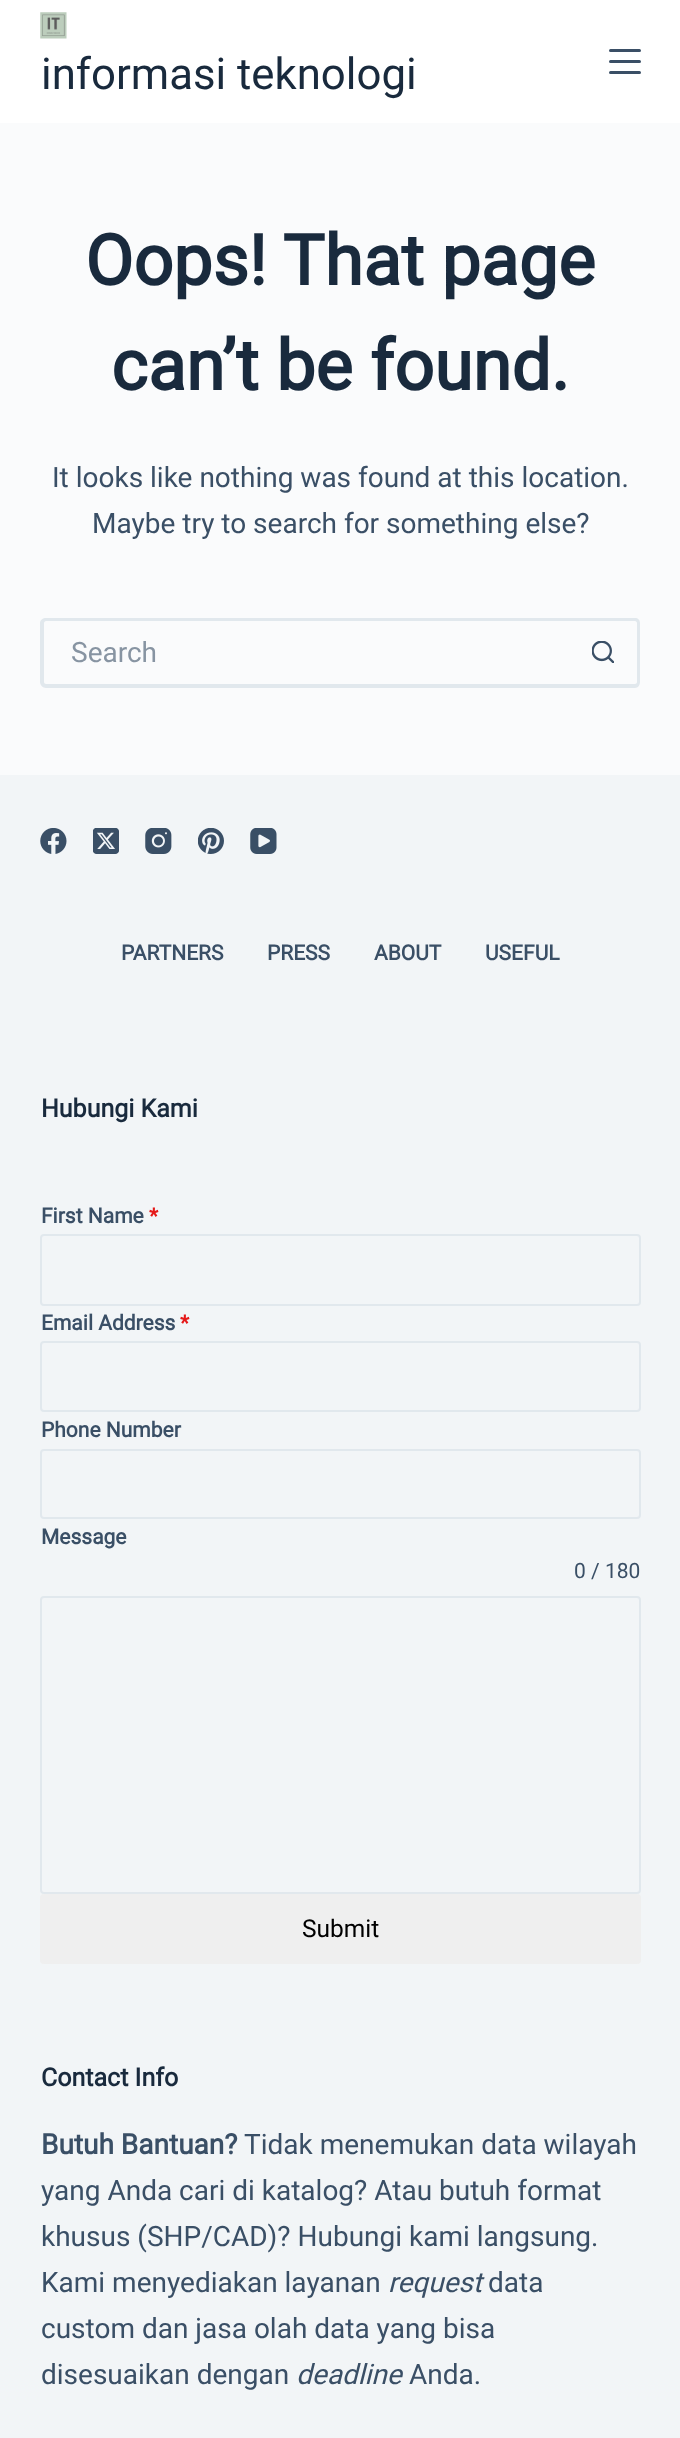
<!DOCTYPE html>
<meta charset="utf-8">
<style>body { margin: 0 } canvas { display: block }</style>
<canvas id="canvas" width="680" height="2438"></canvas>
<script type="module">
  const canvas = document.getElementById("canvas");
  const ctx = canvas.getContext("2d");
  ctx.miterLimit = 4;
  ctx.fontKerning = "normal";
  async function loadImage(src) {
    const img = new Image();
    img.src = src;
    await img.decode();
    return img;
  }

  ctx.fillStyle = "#fafbfc";
  ctx.fillRect(0, 0, 680, 2438);
  ctx.fillStyle = "#ffffff";
  ctx.fillRect(0, 0, 680, 123);
  ctx.drawImage(await loadImage("img1.png"), 40, 12, 27, 27);
  ctx.font = "43.75px Roboto";
  ctx.fillStyle = "#192a3d";
  ctx.fillText("informasi teknologi", 41, 89);
  ctx.fillStyle = "#3a4f66";
  ctx.beginPath();
  ctx.roundRect(609, 49, 32, 3, 1.5);
  ctx.fill();
  ctx.beginPath();
  ctx.roundRect(609, 60, 32, 3, 1.5);
  ctx.fill();
  ctx.beginPath();
  ctx.roundRect(609, 71, 32, 3, 1.5);
  ctx.fill();
  ctx.font = "bold 70px Roboto";
  ctx.fillStyle = "#192a3d";
  ctx.fillText("Oops! That page", 85, 285);
  ctx.fillText("can’t be found.", 111, 390);
  ctx.font = "28px Roboto";
  ctx.fillStyle = "#3a4f66";
  ctx.fillText("It looks like nothing was found at this location.", 52, 487);
  ctx.fillText("Maybe try to search for something else?", 92, 533);
  ctx.fillStyle = "#e1e8ed";
  ctx.beginPath();
  ctx.moveTo(46, 618);
  ctx.lineTo(570, 618);
  ctx.lineTo(570, 688);
  ctx.lineTo(46, 688);
  ctx.bezierCurveTo(43, 688, 40, 685, 40, 682);
  ctx.lineTo(40, 623);
  ctx.bezierCurveTo(40, 620, 43, 618, 46, 618);
  ctx.closePath();
  ctx.moveTo(46, 621);
  ctx.lineTo(570, 621);
  ctx.lineTo(570, 684);
  ctx.lineTo(46, 684);
  ctx.bezierCurveTo(45, 684, 44, 683, 44, 682);
  ctx.lineTo(44, 623);
  ctx.bezierCurveTo(44, 622, 45, 621, 46, 621);
  ctx.closePath();
  ctx.fill("evenodd");
  ctx.fillStyle = "#8794a2";
  ctx.fillText("Search", 71, 662);
  ctx.fillStyle = "#e1e8ed";
  ctx.beginPath();
  ctx.moveTo(570, 618);
  ctx.lineTo(635, 618);
  ctx.bezierCurveTo(638, 618, 640, 620, 640, 623);
  ctx.lineTo(640, 682);
  ctx.bezierCurveTo(640, 685, 638, 688, 635, 688);
  ctx.lineTo(570, 688);
  ctx.closePath();
  ctx.moveTo(570, 621);
  ctx.lineTo(635, 621);
  ctx.bezierCurveTo(636, 621, 637, 622, 637, 623);
  ctx.lineTo(637, 682);
  ctx.bezierCurveTo(637, 683, 636, 684, 635, 684);
  ctx.lineTo(570, 684);
  ctx.closePath();
  ctx.fill("evenodd");
  ctx.drawImage(await loadImage("img2.png"), 592, 641, 22, 22);
  ctx.fillStyle = "#f2f5f7";
  ctx.fillRect(0, 775, 680, 1663);
  ctx.drawImage(await loadImage("img3.png"), 40, 828, 27, 26);
  ctx.drawImage(await loadImage("img4.png"), 93, 828, 26, 26);
  ctx.drawImage(await loadImage("img5.png"), 145, 828, 27, 26);
  ctx.drawImage(await loadImage("img6.png"), 198, 828, 26, 26);
  ctx.drawImage(await loadImage("img7.png"), 250, 828, 27, 26);
  ctx.font = "bold 21px Roboto";
  ctx.fillStyle = "#3a4f66";
  ctx.fillText("PARTNERS", 121, 960);
  ctx.fillText("PRESS", 267, 960);
  ctx.fillText("ABOUT", 374, 960);
  ctx.fillText("USEFUL", 485, 960);
  ctx.font = "bold 25px Roboto";
  ctx.fillStyle = "#192a3d";
  ctx.fillText("Hubungi Kami", 41, 1117);
  ctx.font = "bold 21px Roboto";
  ctx.fillStyle = "#3a4f66";
  ctx.fillText("First Name", 41, 1223);
  ctx.fillStyle = "#e51919";
  ctx.fillText("*", 149, 1223);
  ctx.beginPath();
  ctx.roundRect(41, 1235, 599, 70, 3);
  ctx.strokeStyle = "#e1e8ed";
  ctx.lineWidth = 2;
  ctx.stroke();
  ctx.fillStyle = "#3a4f66";
  ctx.fillText("Email Address", 41, 1330);
  ctx.fillStyle = "#e51919";
  ctx.fillText("*", 180, 1330);
  ctx.beginPath();
  ctx.roundRect(41, 1342, 599, 69, 3);
  ctx.stroke();
  ctx.fillStyle = "#3a4f66";
  ctx.fillText("Phone Number", 41, 1437);
  ctx.beginPath();
  ctx.roundRect(41, 1450, 599, 68, 3);
  ctx.stroke();
  ctx.fillText("Message", 41, 1544);
  ctx.font = "21px Roboto";
  ctx.fillText("0 / 180", 574, 1578);
  ctx.beginPath();
  ctx.roundRect(41, 1597, 599, 296, 3);
  ctx.stroke();
  ctx.fillStyle = "#efefef";
  ctx.beginPath();
  ctx.roundRect(40, 1894, 601, 70, 4);
  ctx.fill();
  ctx.font = "24.5px Roboto";
  ctx.fillStyle = "#000000";
  ctx.fillText("Submit", 302, 1937);
  ctx.font = "bold 25px Roboto";
  ctx.fillStyle = "#192a3d";
  ctx.fillText("Contact Info", 41, 2086);
  ctx.font = "bold 28px Roboto";
  ctx.fillStyle = "#3a4f66";
  ctx.fillText("Butuh Bantuan?", 41, 2154);
  ctx.font = "28px Roboto";
  ctx.fillText("Tidak menemukan data wilayah", 244, 2154);
  ctx.fillText("yang Anda cari di katalog? Atau butuh format", 41, 2200);
  ctx.fillText("khusus (SHP/CAD)? Hubungi kami langsung.", 41, 2246);
  ctx.fillText("Kami menyediakan layanan", 41, 2292);
  ctx.font = "italic 28px Roboto";
  ctx.fillText("request", 388, 2292);
  ctx.font = "28px Roboto";
  ctx.fillText("data", 488, 2292);
  ctx.fillText("custom dan jasa olah data yang bisa", 41, 2338);
  ctx.fillText("disesuaikan dengan", 41, 2384);
  ctx.font = "italic 28px Roboto";
  ctx.fillText("deadline", 296, 2384);
  ctx.font = "28px Roboto";
  ctx.fillText("Anda.", 409, 2384);
</script>
